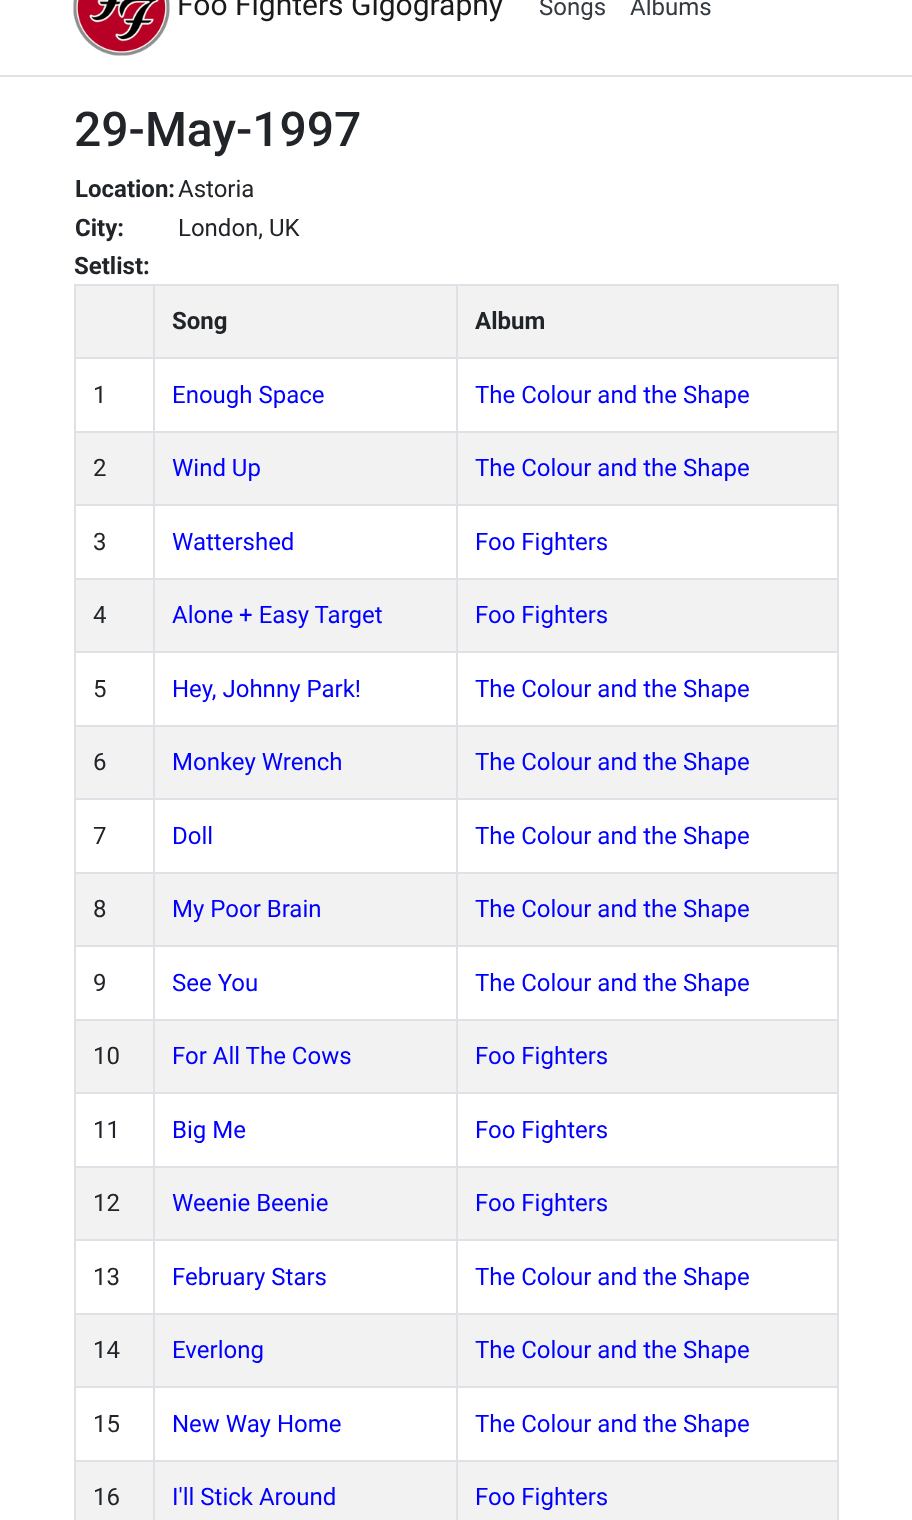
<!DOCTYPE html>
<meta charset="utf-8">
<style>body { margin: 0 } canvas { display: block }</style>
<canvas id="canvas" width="912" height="1520"></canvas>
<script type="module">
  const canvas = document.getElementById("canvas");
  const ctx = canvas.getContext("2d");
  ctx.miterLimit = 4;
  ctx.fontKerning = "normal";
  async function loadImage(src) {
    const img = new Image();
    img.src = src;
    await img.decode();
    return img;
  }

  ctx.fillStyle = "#ffffff";
  ctx.fillRect(0, 0, 912, 1520);
  ctx.fillStyle = "#dee2e6";
  ctx.fillRect(0, 75, 912, 2);
  ctx.drawImage(await loadImage("img1.png"), 73, 0, 97, 56);
  ctx.font = "30px Roboto";
  ctx.fillStyle = "#1a1a1a";
  ctx.fillText("Foo Fighters Gigography", 177, 15);
  ctx.font = "24px Roboto";
  ctx.fillStyle = "#343a40";
  ctx.fillText("Songs", 539, 15);
  ctx.fillText("Albums", 630, 15);
  ctx.font = "500 48px Roboto";
  ctx.fillStyle = "#212529";
  ctx.fillText("29-May-1997", 74, 146);
  ctx.font = "bold 24px Roboto";
  ctx.fillText("Location:", 75, 197);
  ctx.font = "24px Roboto";
  ctx.fillText("Astoria", 178, 197);
  ctx.font = "bold 24px Roboto";
  ctx.fillText("City:", 75, 236);
  ctx.font = "24px Roboto";
  ctx.fillText("London, UK", 178, 236);
  ctx.font = "bold 24px Roboto";
  ctx.fillText("Setlist:", 74, 274);
  ctx.fillStyle = "#dee2e6";
  ctx.fillRect(74, 284, 765, 2);
  ctx.fillRect(837, 284, 2, 1236);
  ctx.fillRect(74, 284, 2, 1236);
  ctx.fillStyle = "#f2f2f2";
  ctx.fillRect(76, 286, 761, 71);
  ctx.fillStyle = "#dee2e6";
  ctx.fillRect(456, 357, 383, 2);
  ctx.fillRect(456, 431, 383, 2);
  ctx.fillStyle = "#f2f2f2";
  ctx.fillRect(76, 433, 761, 71);
  ctx.fillStyle = "#dee2e6";
  ctx.fillRect(456, 504, 383, 2);
  ctx.fillRect(456, 578, 383, 2);
  ctx.fillStyle = "#f2f2f2";
  ctx.fillRect(76, 580, 761, 71);
  ctx.fillStyle = "#dee2e6";
  ctx.fillRect(456, 651, 383, 2);
  ctx.fillRect(456, 725, 383, 2);
  ctx.fillStyle = "#f2f2f2";
  ctx.fillRect(76, 727, 761, 71);
  ctx.fillStyle = "#dee2e6";
  ctx.fillRect(456, 798, 383, 2);
  ctx.fillRect(456, 872, 383, 2);
  ctx.fillStyle = "#f2f2f2";
  ctx.fillRect(76, 874, 761, 71);
  ctx.fillStyle = "#dee2e6";
  ctx.fillRect(456, 945, 383, 2);
  ctx.fillRect(456, 1019, 383, 2);
  ctx.fillStyle = "#f2f2f2";
  ctx.fillRect(76, 1021, 761, 71);
  ctx.fillStyle = "#dee2e6";
  ctx.fillRect(456, 1092, 383, 2);
  ctx.fillRect(456, 1166, 383, 2);
  ctx.fillStyle = "#f2f2f2";
  ctx.fillRect(76, 1168, 761, 71);
  ctx.fillStyle = "#dee2e6";
  ctx.fillRect(456, 1239, 383, 2);
  ctx.fillRect(456, 1313, 383, 2);
  ctx.fillStyle = "#f2f2f2";
  ctx.fillRect(76, 1315, 761, 71);
  ctx.fillStyle = "#dee2e6";
  ctx.fillRect(456, 1386, 383, 2);
  ctx.fillRect(456, 1460, 383, 2);
  ctx.fillStyle = "#f2f2f2";
  ctx.fillRect(76, 1462, 761, 58);
  ctx.fillStyle = "#dee2e6";
  ctx.fillRect(456, 1460, 2, 60);
  ctx.fillRect(153, 1460, 305, 2);
  ctx.fillRect(456, 1386, 2, 75);
  ctx.fillRect(153, 1386, 305, 2);
  ctx.fillRect(456, 1313, 2, 75);
  ctx.fillRect(153, 1313, 305, 2);
  ctx.fillRect(456, 1239, 2, 75);
  ctx.fillRect(153, 1239, 305, 2);
  ctx.fillRect(456, 1166, 2, 75);
  ctx.fillRect(153, 1166, 305, 2);
  ctx.fillRect(456, 1092, 2, 75);
  ctx.fillRect(153, 1092, 305, 2);
  ctx.fillRect(456, 1019, 2, 75);
  ctx.fillRect(153, 1019, 305, 2);
  ctx.fillRect(456, 945, 2, 75);
  ctx.fillRect(153, 945, 305, 2);
  ctx.fillRect(456, 872, 2, 75);
  ctx.fillRect(153, 872, 305, 2);
  ctx.fillRect(456, 798, 2, 75);
  ctx.fillRect(153, 798, 305, 2);
  ctx.fillRect(456, 725, 2, 75);
  ctx.fillRect(153, 725, 305, 2);
  ctx.fillRect(456, 651, 2, 75);
  ctx.fillRect(153, 651, 305, 2);
  ctx.fillRect(456, 578, 2, 75);
  ctx.fillRect(153, 578, 305, 2);
  ctx.fillRect(456, 504, 2, 75);
  ctx.fillRect(153, 504, 305, 2);
  ctx.fillRect(456, 431, 2, 75);
  ctx.fillRect(153, 431, 305, 2);
  ctx.fillRect(456, 357, 2, 75);
  ctx.fillRect(153, 357, 305, 2);
  ctx.fillRect(153, 1460, 2, 60);
  ctx.fillRect(74, 1460, 81, 2);
  ctx.fillRect(153, 1386, 2, 75);
  ctx.fillRect(74, 1386, 81, 2);
  ctx.fillRect(153, 1313, 2, 75);
  ctx.fillRect(74, 1313, 81, 2);
  ctx.fillRect(153, 1239, 2, 75);
  ctx.fillRect(74, 1239, 81, 2);
  ctx.fillRect(153, 1166, 2, 75);
  ctx.fillRect(74, 1166, 81, 2);
  ctx.fillRect(153, 1092, 2, 75);
  ctx.fillRect(74, 1092, 81, 2);
  ctx.fillRect(153, 1019, 2, 75);
  ctx.fillRect(74, 1019, 81, 2);
  ctx.fillRect(153, 945, 2, 75);
  ctx.fillRect(74, 945, 81, 2);
  ctx.fillRect(153, 872, 2, 75);
  ctx.fillRect(74, 872, 81, 2);
  ctx.fillRect(153, 798, 2, 75);
  ctx.fillRect(74, 798, 81, 2);
  ctx.fillRect(153, 725, 2, 75);
  ctx.fillRect(74, 725, 81, 2);
  ctx.fillRect(153, 651, 2, 75);
  ctx.fillRect(74, 651, 81, 2);
  ctx.fillRect(153, 578, 2, 75);
  ctx.fillRect(74, 578, 81, 2);
  ctx.fillRect(153, 504, 2, 75);
  ctx.fillRect(74, 504, 81, 2);
  ctx.fillRect(153, 431, 2, 75);
  ctx.fillRect(74, 431, 81, 2);
  ctx.fillRect(153, 357, 2, 75);
  ctx.fillRect(74, 357, 81, 2);
  ctx.fillRect(153, 284, 2, 75);
  ctx.fillStyle = "#212529";
  ctx.fillText("Song", 172, 329);
  ctx.fillStyle = "#dee2e6";
  ctx.fillRect(456, 284, 2, 75);
  ctx.fillStyle = "#212529";
  ctx.fillText("Album", 475, 329);
  ctx.font = "24px Roboto";
  ctx.fillText("1", 93, 403);
  ctx.fillStyle = "#0000ff";
  ctx.fillText("Enough Space", 172, 403);
  ctx.fillText("The Colour and the Shape", 475, 403);
  ctx.fillStyle = "#212529";
  ctx.fillText("2", 93, 476);
  ctx.fillStyle = "#0000ff";
  ctx.fillText("Wind Up", 172, 476);
  ctx.fillText("The Colour and the Shape", 475, 476);
  ctx.fillStyle = "#212529";
  ctx.fillText("3", 93, 550);
  ctx.fillStyle = "#0000ff";
  ctx.fillText("Wattershed", 172, 550);
  ctx.fillText("Foo Fighters", 475, 550);
  ctx.fillStyle = "#212529";
  ctx.fillText("4", 93, 623);
  ctx.fillStyle = "#0000ff";
  ctx.fillText("Alone + Easy Target", 172, 623);
  ctx.fillText("Foo Fighters", 475, 623);
  ctx.fillStyle = "#212529";
  ctx.fillText("5", 93, 697);
  ctx.fillStyle = "#0000ff";
  ctx.fillText("Hey, Johnny Park!", 172, 697);
  ctx.fillText("The Colour and the Shape", 475, 697);
  ctx.fillStyle = "#212529";
  ctx.fillText("6", 93, 770);
  ctx.fillStyle = "#0000ff";
  ctx.fillText("Monkey Wrench", 172, 770);
  ctx.fillText("The Colour and the Shape", 475, 770);
  ctx.fillStyle = "#212529";
  ctx.fillText("7", 93, 844);
  ctx.fillStyle = "#0000ff";
  ctx.fillText("Doll", 172, 844);
  ctx.fillText("The Colour and the Shape", 475, 844);
  ctx.fillStyle = "#212529";
  ctx.fillText("8", 93, 917);
  ctx.fillStyle = "#0000ff";
  ctx.fillText("My Poor Brain", 172, 917);
  ctx.fillText("The Colour and the Shape", 475, 917);
  ctx.fillStyle = "#212529";
  ctx.fillText("9", 93, 991);
  ctx.fillStyle = "#0000ff";
  ctx.fillText("See You", 172, 991);
  ctx.fillText("The Colour and the Shape", 475, 991);
  ctx.fillStyle = "#212529";
  ctx.fillText("10", 93, 1064);
  ctx.fillStyle = "#0000ff";
  ctx.fillText("For All The Cows", 172, 1064);
  ctx.fillText("Foo Fighters", 475, 1064);
  ctx.fillStyle = "#212529";
  ctx.fillText("11", 93, 1138);
  ctx.fillStyle = "#0000ff";
  ctx.fillText("Big Me", 172, 1138);
  ctx.fillText("Foo Fighters", 475, 1138);
  ctx.fillStyle = "#212529";
  ctx.fillText("12", 93, 1211);
  ctx.fillStyle = "#0000ff";
  ctx.fillText("Weenie Beenie", 172, 1211);
  ctx.fillText("Foo Fighters", 475, 1211);
  ctx.fillStyle = "#212529";
  ctx.fillText("13", 93, 1285);
  ctx.fillStyle = "#0000ff";
  ctx.fillText("February Stars", 172, 1285);
  ctx.fillText("The Colour and the Shape", 475, 1285);
  ctx.fillStyle = "#212529";
  ctx.fillText("14", 93, 1358);
  ctx.fillStyle = "#0000ff";
  ctx.fillText("Everlong", 172, 1358);
  ctx.fillText("The Colour and the Shape", 475, 1358);
  ctx.fillStyle = "#212529";
  ctx.fillText("15", 93, 1432);
  ctx.fillStyle = "#0000ff";
  ctx.fillText("New Way Home", 172, 1432);
  ctx.fillText("The Colour and the Shape", 475, 1432);
  ctx.fillStyle = "#212529";
  ctx.fillText("16", 93, 1505);
  ctx.fillStyle = "#0000ff";
  ctx.fillText("I'll Stick Around", 172, 1505);
  ctx.fillText("Foo Fighters", 475, 1505);
</script>
